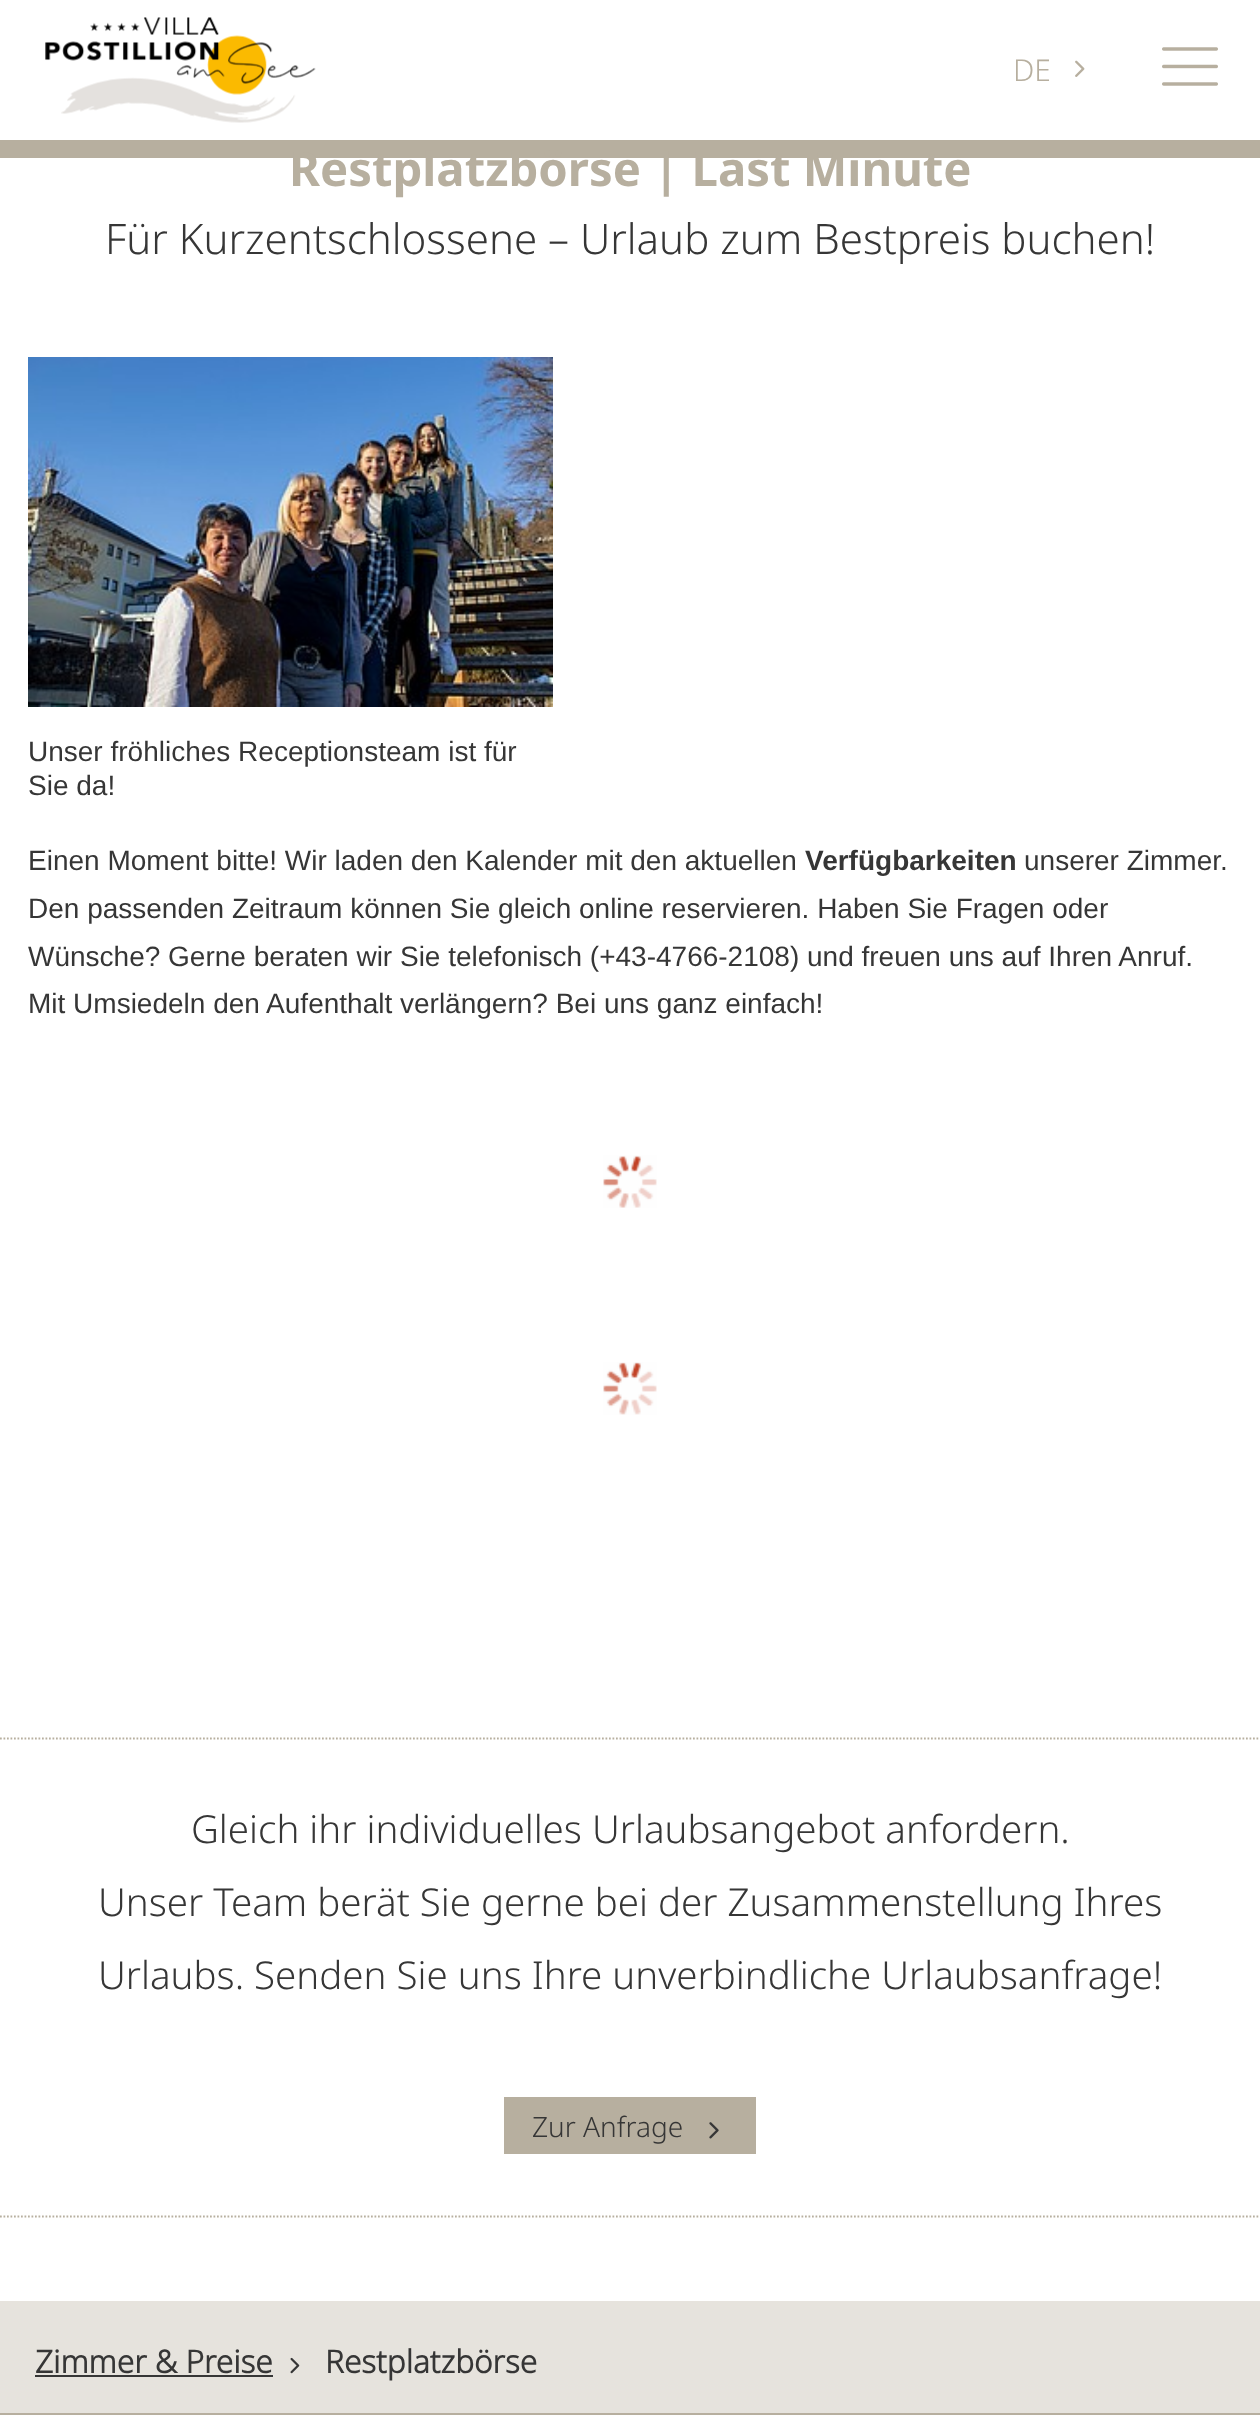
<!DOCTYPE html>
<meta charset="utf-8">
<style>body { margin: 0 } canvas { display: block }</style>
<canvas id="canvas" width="1260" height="2415"></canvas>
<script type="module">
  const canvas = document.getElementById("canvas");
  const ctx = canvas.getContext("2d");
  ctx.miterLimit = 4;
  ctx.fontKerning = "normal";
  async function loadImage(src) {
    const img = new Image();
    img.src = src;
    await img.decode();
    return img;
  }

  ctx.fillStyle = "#ffffff";
  ctx.fillRect(0, 0, 1260, 2415);
  ctx.fillStyle = "#b7af9f";
  ctx.fillRect(0, 140, 1260, 18);
  ctx.drawImage(await loadImage("img1.png"), 45, 17, 271, 106);
  ctx.font = "300 30px Noto Sans";
  ctx.fillText("DE", 1013, 81);
  ctx.drawImage(await loadImage("img2.png"), 1075, 60, 10, 17);
  ctx.drawImage(await loadImage("img3.png"), 1162, 47, 56, 39);
  ctx.font = "bold 47.25px 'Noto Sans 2'";
  ctx.fillText("Restplatzbörse | Last Minute", 289, 186);
  ctx.font = "300 42px Noto Sans";
  ctx.fillStyle = "#363636";
  ctx.fillText("Für Kurzentschlossene – Urlaub zum Bestpreis buchen!", 105, 254);
  ctx.drawImage(await loadImage("img4.png"), 28, 357, 525, 350);
  ctx.font = "28px Liberation Sans";
  ctx.fillText("Unser fröhliches Receptionsteam ist für", 28, 761);
  ctx.fillText("Sie da!", 28, 795);
  ctx.fillText("Einen Moment bitte! Wir laden den Kalender mit den aktuellen", 28, 870);
  ctx.font = "bold 28px Liberation Sans";
  ctx.fillText("Verfügbarkeiten", 805, 870);
  ctx.font = "28px Liberation Sans";
  ctx.fillText("unserer Zimmer.", 1024, 870);
  ctx.fillText("Den passenden Zeitraum können Sie gleich online reservieren. Haben Sie Fragen oder", 28, 918);
  ctx.fillText("Wünsche? Gerne beraten wir Sie telefonisch (+43-4766-2108) und freuen uns auf Ihren Anruf.", 28, 966);
  ctx.fillText("Mit Umsiedeln den Aufenthalt verlängern? Bei uns ganz einfach!", 28, 1013);
  ctx.drawImage(await loadImage("img5.png"), 603, 1155, 54, 53);
  ctx.drawImage(await loadImage("img6.png"), 603, 1362, 54, 53);
  ctx.beginPath();
  ctx.moveTo(0, 1738.5);
  ctx.lineTo(1260, 1738.5);
  ctx.strokeStyle = "#b7af9f";
  ctx.lineWidth = 1.8;
  ctx.setLineDash([1.75, 1.75]);
  ctx.stroke();
  ctx.beginPath();
  ctx.moveTo(0, 2216.5);
  ctx.lineTo(1260, 2216.5);
  ctx.stroke();
  ctx.font = "300 38.5px Noto Sans";
  ctx.fillText("Gleich ihr individuelles Urlaubsangebot anfordern.", 191, 1843);
  ctx.fillText("Unser Team berät Sie gerne bei der Zusammenstellung Ihres", 98, 1916);
  ctx.fillText("Urlaubs. Senden Sie uns Ihre unverbindliche Urlaubsanfrage!", 98, 1989);
  ctx.fillStyle = "#b7af9f";
  ctx.fillRect(504, 2097, 252, 57);
  ctx.font = "300 28px Noto Sans";
  ctx.fillStyle = "#363636";
  ctx.fillText("Zur Anfrage", 532, 2137);
  ctx.drawImage(await loadImage("img7.png"), 709, 2122, 10, 17);
  ctx.fillStyle = "#e6e3dd";
  ctx.fillRect(0, 2301, 1260, 112);
  ctx.font = "bold 31.5px Noto Sans";
  ctx.fillStyle = "#363636";
  ctx.fillText("Zimmer & Preise", 35, 2373);
  ctx.fillRect(35, 2375, 238, 2);
  ctx.drawImage(await loadImage("img8.png"), 290, 2357, 10, 17);
  ctx.fillText("Restplatzbörse", 325, 2373);
  ctx.fillStyle = "#b7af9f";
  ctx.fillRect(0, 2413, 1260, 2);
</script>
